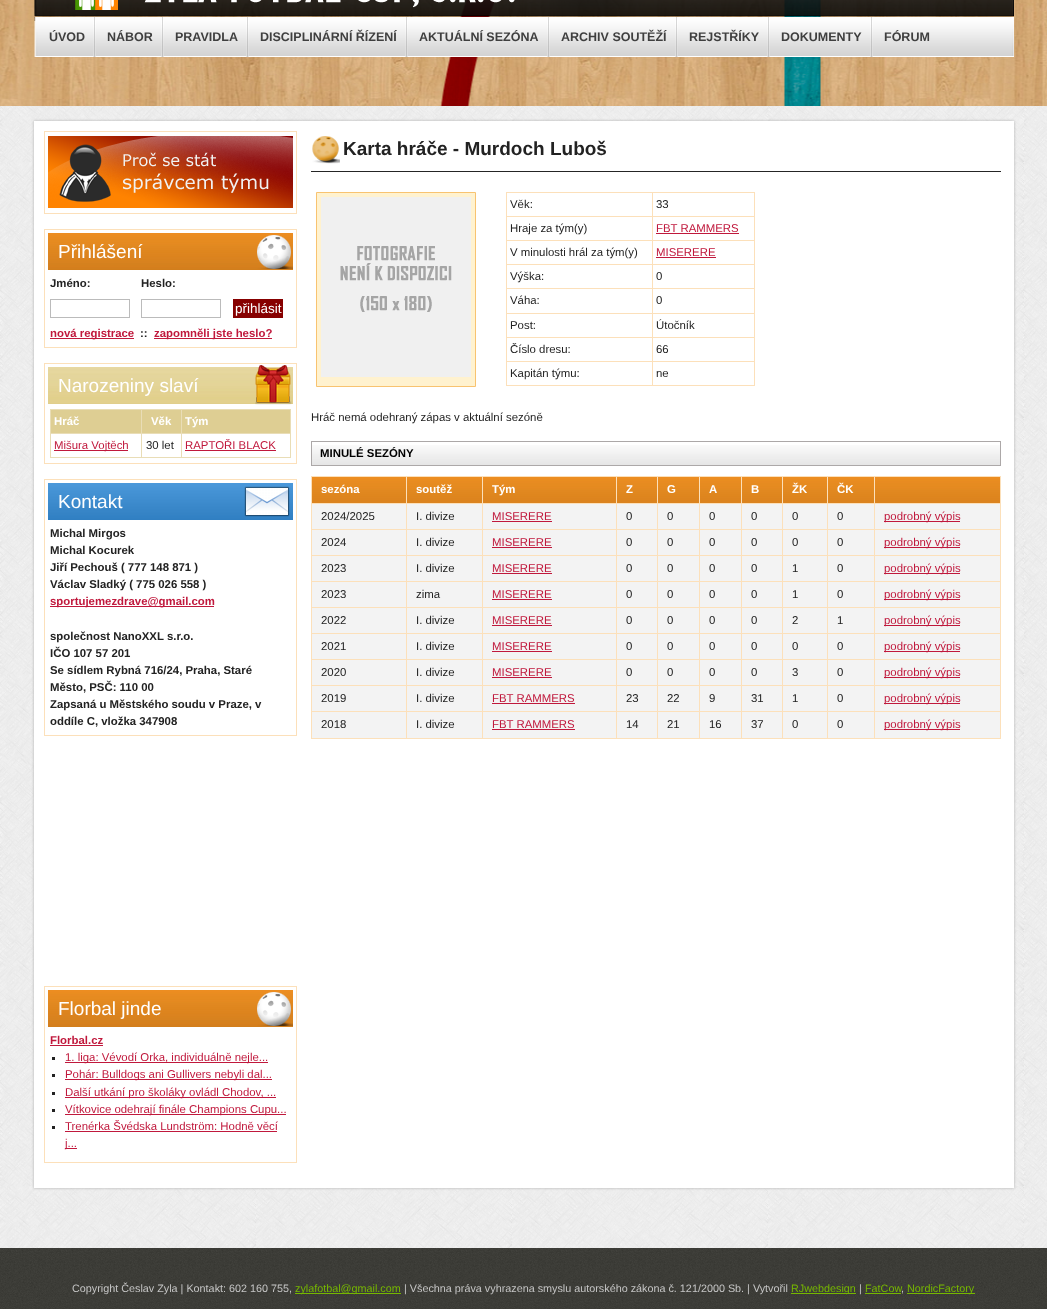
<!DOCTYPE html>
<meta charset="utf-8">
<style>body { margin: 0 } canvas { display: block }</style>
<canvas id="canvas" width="1047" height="1309"></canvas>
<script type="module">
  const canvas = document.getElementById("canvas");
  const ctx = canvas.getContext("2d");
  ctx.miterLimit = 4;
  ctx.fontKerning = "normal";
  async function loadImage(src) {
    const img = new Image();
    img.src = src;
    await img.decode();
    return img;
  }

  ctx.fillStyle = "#ffffff";
  ctx.fillRect(0, 0, 1047, 1309);
  ctx.drawImage(await loadImage("img1.png"), 0, 106, 1047, 1142);
  ctx.drawImage(await loadImage("img2.png"), 0, 0, 1047, 106);
  ctx.drawImage(await loadImage("img4.png"), 34, 0, 980, 57);
  ctx.drawImage(await loadImage("img3.png"), 75, 0, 440, 10);
  ctx.drawImage(await loadImage("img5.png"), 93, 17, 3, 40);
  ctx.font = "bold 12.5px Liberation Sans";
  ctx.fillStyle = "#3f3f3f";
  ctx.fillText("ÚVOD", 49, 41);
  ctx.drawImage(await loadImage("img5.png"), 161, 17, 3, 40);
  ctx.fillText("NÁBOR", 107, 41);
  ctx.drawImage(await loadImage("img5.png"), 246, 17, 3, 40);
  ctx.fillText("PRAVIDLA", 175, 41);
  ctx.drawImage(await loadImage("img5.png"), 405, 17, 3, 40);
  ctx.fillText("DISCIPLINÁRNÍ ŘÍZENÍ", 260, 41);
  ctx.drawImage(await loadImage("img5.png"), 547, 17, 3, 40);
  ctx.fillText("AKTUÁLNÍ SEZÓNA", 419, 41);
  ctx.drawImage(await loadImage("img5.png"), 675, 17, 3, 40);
  ctx.fillText("ARCHIV SOUTĚŽÍ", 561, 41);
  ctx.drawImage(await loadImage("img5.png"), 767, 17, 3, 40);
  ctx.fillText("REJSTŘÍKY", 689, 41);
  ctx.drawImage(await loadImage("img5.png"), 870, 17, 3, 40);
  ctx.fillText("DOKUMENTY", 781, 41);
  ctx.fillText("FÓRUM", 884, 41);
  ctx.fillStyle = "#b0b0b0";
  ctx.filter = "blur(1.5px)";
  ctx.beginPath();
  ctx.rect(34, 121, 980, 1067);
  ctx.fill();
  ctx.filter = "none";
  ctx.fillStyle = "#ffffff";
  ctx.fillRect(34, 121, 980, 1067);
  ctx.strokeStyle = "#fce0ba";
  ctx.strokeRect(44.5, 131.5, 252, 82);
  ctx.drawImage(await loadImage("img6.png"), 48, 136, 245, 72);
  ctx.strokeRect(44.5, 229.5, 252, 118);
  ctx.drawImage(await loadImage("img7.png"), 48, 233, 245, 37);
  ctx.font = "19px Liberation Sans";
  ctx.fillText("Přihlášení", 58, 258);
  ctx.drawImage(await loadImage("img8.png"), 257, 235, 36, 34);
  ctx.font = "bold 11.4px Liberation Sans";
  ctx.fillStyle = "#222222";
  ctx.fillText("Jméno:", 50, 287);
  ctx.fillText("Heslo:", 141, 287);
  ctx.strokeStyle = "#bbbbbb";
  ctx.strokeRect(50.5, 299.5, 79, 18);
  ctx.strokeRect(141.5, 299.5, 79, 18);
  ctx.fillStyle = "#870000";
  ctx.fillRect(233, 299, 50, 19);
  ctx.font = "13.5px Liberation Sans";
  ctx.fillStyle = "#ffffff";
  ctx.fillText("přihlásit", 235, 313);
  ctx.fillStyle = "#c0183c";
  ctx.fillRect(50, 338, 84, 1);
  ctx.font = "bold 11.4px Liberation Sans";
  ctx.fillText("nová registrace", 50, 337);
  ctx.fillStyle = "#222222";
  ctx.fillText("::", 140, 337);
  ctx.fillStyle = "#c0183c";
  ctx.fillRect(154, 338, 118, 1);
  ctx.fillText("zapomněli jste heslo?", 154, 337);
  ctx.strokeStyle = "#fce0ba";
  ctx.strokeRect(44.5, 363.5, 252, 100);
  ctx.drawImage(await loadImage("img9.png"), 48, 367, 245, 37);
  ctx.font = "19px Liberation Sans";
  ctx.fillStyle = "#ffffff";
  ctx.fillText("Narozeniny slaví", 58, 392);
  ctx.drawImage(await loadImage("img10.png"), 255, 365, 37, 40);
  ctx.fillStyle = "#dece93";
  ctx.fillRect(51, 410, 90, 23);
  ctx.fillStyle = "#e9ddb6";
  ctx.fillRect(181, 409, 110, 1);
  ctx.fillRect(181, 433, 110, 1);
  ctx.fillRect(290, 433, 1, 25);
  ctx.fillRect(181, 457, 110, 1);
  ctx.fillRect(181, 433, 1, 25);
  ctx.fillRect(141, 433, 41, 1);
  ctx.fillRect(181, 409, 1, 25);
  ctx.fillRect(141, 409, 41, 1);
  ctx.fillRect(141, 457, 41, 1);
  ctx.fillRect(141, 433, 1, 25);
  ctx.fillRect(50, 433, 92, 1);
  ctx.fillRect(141, 409, 1, 25);
  ctx.fillRect(50, 409, 92, 1);
  ctx.fillRect(50, 457, 92, 1);
  ctx.fillRect(50, 433, 1, 25);
  ctx.fillRect(50, 409, 1, 25);
  ctx.font = "bold 11.4px Liberation Sans";
  ctx.fillStyle = "#ffffff";
  ctx.fillText("Hráč", 54, 425);
  ctx.fillStyle = "#dece93";
  ctx.fillRect(142, 410, 39, 23);
  ctx.fillStyle = "#ffffff";
  ctx.fillText("Věk", 151, 425);
  ctx.fillStyle = "#dece93";
  ctx.fillRect(182, 410, 108, 23);
  ctx.fillStyle = "#e9ddb6";
  ctx.fillRect(290, 409, 1, 25);
  ctx.fillStyle = "#ffffff";
  ctx.fillText("Tým", 185, 425);
  ctx.fillStyle = "#c0183c";
  ctx.fillRect(54, 450, 74, 1);
  ctx.font = "11.4px Liberation Sans";
  ctx.fillText("Mišura Vojtěch", 54, 449);
  ctx.fillStyle = "#222222";
  ctx.fillText("30 let", 146, 449);
  ctx.fillStyle = "#c0183c";
  ctx.fillText("RAPTOŘI BLACK", 185, 449);
  ctx.fillRect(185, 450, 91, 1);
  ctx.strokeRect(44.5, 479.5, 252, 256);
  ctx.drawImage(await loadImage("img11.png"), 48, 483, 245, 37);
  ctx.font = "19px Liberation Sans";
  ctx.fillStyle = "#ffffff";
  ctx.fillText("Kontakt", 58, 508);
  ctx.drawImage(await loadImage("img12.png"), 244, 486, 46, 31);
  ctx.font = "bold 11.4px Liberation Sans";
  ctx.fillStyle = "#222222";
  ctx.fillText("Michal Mirgos", 50, 537);
  ctx.fillText("Michal Kocurek", 50, 554);
  ctx.fillText("Jiří Pechouš ( 777 148 871 )", 50, 571);
  ctx.fillText("Václav Sladký ( 775 026 558 )", 50, 588);
  ctx.fillStyle = "#c0183c";
  ctx.fillRect(50, 606, 164, 1);
  ctx.fillText("sportujemezdrave@gmail.com", 50, 605);
  ctx.fillStyle = "#222222";
  ctx.fillText("společnost NanoXXL s.r.o.", 50, 640);
  ctx.fillText("IČO 107 57 201", 50, 657);
  ctx.fillText("Se sídlem Rybná 716/24, Praha, Staré", 50, 674);
  ctx.fillText("Město, PSČ: 110 00", 50, 691);
  ctx.fillText("Zapsaná u Městského soudu v Praze, v", 50, 708);
  ctx.fillText("oddíle C, vložka 347908", 50, 725);
  ctx.strokeRect(44.5, 986.5, 252, 176);
  ctx.drawImage(await loadImage("img7.png"), 48, 990, 245, 37);
  ctx.font = "19px Liberation Sans";
  ctx.fillStyle = "#ffffff";
  ctx.fillText("Florbal jinde", 58, 1015);
  ctx.drawImage(await loadImage("img8.png"), 257, 992, 36, 34);
  ctx.font = "bold 11.4px Liberation Sans";
  ctx.fillStyle = "#c0183c";
  ctx.fillText("Florbal.cz", 50, 1044);
  ctx.fillRect(50, 1045, 53, 1);
  ctx.fillStyle = "#222222";
  ctx.fillRect(52, 1057, 3, 3);
  ctx.fillStyle = "#c0183c";
  ctx.fillRect(65, 1062, 203, 1);
  ctx.font = "11.4px Liberation Sans";
  ctx.fillText("1. liga: Vévodí Orka, individuálně nejle...", 65, 1061);
  ctx.fillStyle = "#222222";
  ctx.fillRect(52, 1074, 3, 3);
  ctx.fillStyle = "#c0183c";
  ctx.fillRect(65, 1079, 207, 1);
  ctx.fillText("Pohár: Bulldogs ani Gullivers nebyli dal...", 65, 1078);
  ctx.fillStyle = "#222222";
  ctx.fillRect(52, 1092, 3, 3);
  ctx.fillStyle = "#c0183c";
  ctx.fillRect(65, 1097, 211, 1);
  ctx.fillText("Další utkání pro školáky ovládl Chodov, ...", 65, 1096);
  ctx.fillStyle = "#222222";
  ctx.fillRect(52, 1109, 3, 3);
  ctx.fillStyle = "#c0183c";
  ctx.fillRect(65, 1114, 221, 1);
  ctx.fillText("Vítkovice odehrají finále Champions Cupu...", 65, 1113);
  ctx.fillStyle = "#222222";
  ctx.fillRect(52, 1126, 3, 3);
  ctx.fillStyle = "#c0183c";
  ctx.fillText("Trenérka Švédska Lundström: Hodně věcí", 65, 1130);
  ctx.fillRect(65, 1131, 212, 1);
  ctx.fillRect(65, 1148, 12, 1);
  ctx.fillText("j...", 65, 1147);
  ctx.drawImage(await loadImage("img13.png"), 312, 136, 28, 28);
  ctx.fillStyle = "#252525";
  ctx.fillRect(311, 171, 690, 1);
  ctx.font = "bold 19px Liberation Sans";
  ctx.fillStyle = "#222222";
  ctx.fillText("Karta hráče - Murdoch Luboš", 343, 155);
  ctx.fillStyle = "#fff2cf";
  ctx.beginPath();
  ctx.rect(316.5, 192.5, 159, 194);
  ctx.fill();
  ctx.strokeStyle = "#f8c370";
  ctx.stroke();
  ctx.drawImage(await loadImage("img14.png"), 321, 197, 150, 180);
  ctx.fillStyle = "#fce0ba";
  ctx.fillRect(652, 192, 103, 1);
  ctx.fillRect(652, 216, 103, 1);
  ctx.fillRect(652, 240, 103, 1);
  ctx.fillRect(652, 264, 103, 1);
  ctx.fillRect(652, 288, 103, 1);
  ctx.fillRect(652, 313, 103, 1);
  ctx.fillRect(652, 337, 103, 1);
  ctx.fillRect(652, 361, 103, 1);
  ctx.fillRect(754, 361, 1, 25);
  ctx.fillRect(652, 385, 103, 1);
  ctx.fillRect(652, 361, 1, 25);
  ctx.fillRect(506, 361, 147, 1);
  ctx.fillRect(652, 337, 1, 25);
  ctx.fillRect(506, 337, 147, 1);
  ctx.fillRect(652, 313, 1, 25);
  ctx.fillRect(506, 313, 147, 1);
  ctx.fillRect(652, 288, 1, 26);
  ctx.fillRect(506, 288, 147, 1);
  ctx.fillRect(652, 264, 1, 25);
  ctx.fillRect(506, 264, 147, 1);
  ctx.fillRect(652, 240, 1, 25);
  ctx.fillRect(506, 240, 147, 1);
  ctx.fillRect(652, 216, 1, 25);
  ctx.fillRect(506, 216, 147, 1);
  ctx.fillRect(652, 192, 1, 25);
  ctx.fillRect(506, 192, 147, 1);
  ctx.fillRect(506, 385, 147, 1);
  ctx.fillRect(506, 361, 1, 25);
  ctx.fillRect(506, 337, 1, 25);
  ctx.fillRect(506, 313, 1, 25);
  ctx.fillRect(506, 288, 1, 26);
  ctx.fillRect(506, 264, 1, 25);
  ctx.fillRect(506, 240, 1, 25);
  ctx.fillRect(506, 216, 1, 25);
  ctx.fillRect(506, 192, 1, 25);
  ctx.font = "11.4px Liberation Sans";
  ctx.fillStyle = "#222222";
  ctx.fillText("Věk:", 510, 208);
  ctx.fillStyle = "#fce0ba";
  ctx.fillRect(754, 337, 1, 25);
  ctx.fillRect(754, 313, 1, 25);
  ctx.fillRect(754, 288, 1, 26);
  ctx.fillRect(754, 264, 1, 25);
  ctx.fillRect(754, 240, 1, 25);
  ctx.fillRect(754, 216, 1, 25);
  ctx.fillRect(754, 192, 1, 25);
  ctx.fillStyle = "#222222";
  ctx.fillText("33", 656, 208);
  ctx.fillText("Hraje za tým(y)", 510, 232);
  ctx.fillStyle = "#c0183c";
  ctx.fillText("FBT RAMMERS", 656, 232);
  ctx.fillRect(656, 233, 83, 1);
  ctx.fillStyle = "#222222";
  ctx.fillText("V minulosti hrál za tým(y)", 510, 256);
  ctx.fillStyle = "#c0183c";
  ctx.fillText("MISERERE", 656, 256);
  ctx.fillRect(656, 257, 60, 1);
  ctx.fillStyle = "#222222";
  ctx.fillText("Výška:", 510, 280);
  ctx.fillText("0", 656, 280);
  ctx.fillText("Váha:", 510, 304);
  ctx.fillText("0", 656, 304);
  ctx.fillText("Post:", 510, 329);
  ctx.fillText("Útočník", 656, 329);
  ctx.fillText("Číslo dresu:", 510, 353);
  ctx.fillText("66", 656, 353);
  ctx.fillText("Kapitán týmu:", 510, 377);
  ctx.fillText("ne", 656, 377);
  ctx.fillText("Hráč nemá odehraný zápas v aktuální sezóně", 311, 421);
  ctx.drawImage(await loadImage("img15.png"), 312, 445, 688, 20);
  ctx.strokeStyle = "#aca8a8";
  ctx.strokeRect(311.5, 441.5, 689, 24);
  ctx.font = "bold 11.4px Liberation Sans";
  ctx.fillStyle = "#000000";
  ctx.fillText("MINULÉ SEZÓNY", 320, 457);
  ctx.fillStyle = "#f3f3f3";
  ctx.fillRect(312, 504, 688, 234);
  ctx.drawImage(await loadImage("img16.png"), 312, 477, 94, 26);
  ctx.fillStyle = "#fce0ba";
  ctx.fillRect(874, 476, 127, 1);
  ctx.fillRect(874, 503, 127, 1);
  ctx.fillRect(874, 529, 127, 1);
  ctx.fillRect(874, 555, 127, 1);
  ctx.fillRect(874, 581, 127, 1);
  ctx.fillRect(874, 607, 127, 1);
  ctx.fillRect(874, 633, 127, 1);
  ctx.fillRect(874, 659, 127, 1);
  ctx.fillRect(874, 685, 127, 1);
  ctx.fillRect(874, 711, 127, 1);
  ctx.fillRect(1000, 711, 1, 28);
  ctx.fillRect(874, 738, 127, 1);
  ctx.fillRect(874, 711, 1, 28);
  ctx.fillRect(827, 711, 48, 1);
  ctx.fillRect(874, 685, 1, 27);
  ctx.fillRect(827, 685, 48, 1);
  ctx.fillRect(874, 659, 1, 27);
  ctx.fillRect(827, 659, 48, 1);
  ctx.fillRect(874, 633, 1, 27);
  ctx.fillRect(827, 633, 48, 1);
  ctx.fillRect(874, 607, 1, 27);
  ctx.fillRect(827, 607, 48, 1);
  ctx.fillRect(874, 581, 1, 27);
  ctx.fillRect(827, 581, 48, 1);
  ctx.fillRect(874, 555, 1, 27);
  ctx.fillRect(827, 555, 48, 1);
  ctx.fillRect(874, 529, 1, 27);
  ctx.fillRect(827, 529, 48, 1);
  ctx.fillRect(874, 503, 1, 27);
  ctx.fillRect(827, 503, 48, 1);
  ctx.fillRect(874, 476, 1, 28);
  ctx.fillRect(827, 476, 48, 1);
  ctx.fillRect(827, 738, 48, 1);
  ctx.fillRect(827, 711, 1, 28);
  ctx.fillRect(782, 711, 46, 1);
  ctx.fillRect(827, 685, 1, 27);
  ctx.fillRect(782, 685, 46, 1);
  ctx.fillRect(827, 659, 1, 27);
  ctx.fillRect(782, 659, 46, 1);
  ctx.fillRect(827, 633, 1, 27);
  ctx.fillRect(782, 633, 46, 1);
  ctx.fillRect(827, 607, 1, 27);
  ctx.fillRect(782, 607, 46, 1);
  ctx.fillRect(827, 581, 1, 27);
  ctx.fillRect(782, 581, 46, 1);
  ctx.fillRect(827, 555, 1, 27);
  ctx.fillRect(782, 555, 46, 1);
  ctx.fillRect(827, 529, 1, 27);
  ctx.fillRect(782, 529, 46, 1);
  ctx.fillRect(827, 503, 1, 27);
  ctx.fillRect(782, 503, 46, 1);
  ctx.fillRect(827, 476, 1, 28);
  ctx.fillRect(782, 476, 46, 1);
  ctx.fillRect(782, 738, 46, 1);
  ctx.fillRect(782, 711, 1, 28);
  ctx.fillRect(741, 711, 42, 1);
  ctx.fillRect(782, 685, 1, 27);
  ctx.fillRect(741, 685, 42, 1);
  ctx.fillRect(782, 659, 1, 27);
  ctx.fillRect(741, 659, 42, 1);
  ctx.fillRect(782, 633, 1, 27);
  ctx.fillRect(741, 633, 42, 1);
  ctx.fillRect(782, 607, 1, 27);
  ctx.fillRect(741, 607, 42, 1);
  ctx.fillRect(782, 581, 1, 27);
  ctx.fillRect(741, 581, 42, 1);
  ctx.fillRect(782, 555, 1, 27);
  ctx.fillRect(741, 555, 42, 1);
  ctx.fillRect(782, 529, 1, 27);
  ctx.fillRect(741, 529, 42, 1);
  ctx.fillRect(782, 503, 1, 27);
  ctx.fillRect(741, 503, 42, 1);
  ctx.fillRect(782, 476, 1, 28);
  ctx.fillRect(741, 476, 42, 1);
  ctx.fillRect(741, 738, 42, 1);
  ctx.fillRect(741, 711, 1, 28);
  ctx.fillRect(699, 711, 43, 1);
  ctx.fillRect(741, 685, 1, 27);
  ctx.fillRect(699, 685, 43, 1);
  ctx.fillRect(741, 659, 1, 27);
  ctx.fillRect(699, 659, 43, 1);
  ctx.fillRect(741, 633, 1, 27);
  ctx.fillRect(699, 633, 43, 1);
  ctx.fillRect(741, 607, 1, 27);
  ctx.fillRect(699, 607, 43, 1);
  ctx.fillRect(741, 581, 1, 27);
  ctx.fillRect(699, 581, 43, 1);
  ctx.fillRect(741, 555, 1, 27);
  ctx.fillRect(699, 555, 43, 1);
  ctx.fillRect(741, 529, 1, 27);
  ctx.fillRect(699, 529, 43, 1);
  ctx.fillRect(741, 503, 1, 27);
  ctx.fillRect(699, 503, 43, 1);
  ctx.fillRect(741, 476, 1, 28);
  ctx.fillRect(699, 476, 43, 1);
  ctx.fillRect(699, 738, 43, 1);
  ctx.fillRect(699, 711, 1, 28);
  ctx.fillRect(657, 711, 43, 1);
  ctx.fillRect(699, 685, 1, 27);
  ctx.fillRect(657, 685, 43, 1);
  ctx.fillRect(699, 659, 1, 27);
  ctx.fillRect(657, 659, 43, 1);
  ctx.fillRect(699, 633, 1, 27);
  ctx.fillRect(657, 633, 43, 1);
  ctx.fillRect(699, 607, 1, 27);
  ctx.fillRect(657, 607, 43, 1);
  ctx.fillRect(699, 581, 1, 27);
  ctx.fillRect(657, 581, 43, 1);
  ctx.fillRect(699, 555, 1, 27);
  ctx.fillRect(657, 555, 43, 1);
  ctx.fillRect(699, 529, 1, 27);
  ctx.fillRect(657, 529, 43, 1);
  ctx.fillRect(699, 503, 1, 27);
  ctx.fillRect(657, 503, 43, 1);
  ctx.fillRect(699, 476, 1, 28);
  ctx.fillRect(657, 476, 43, 1);
  ctx.fillRect(657, 738, 43, 1);
  ctx.fillRect(657, 711, 1, 28);
  ctx.fillRect(616, 711, 42, 1);
  ctx.fillRect(657, 685, 1, 27);
  ctx.fillRect(616, 685, 42, 1);
  ctx.fillRect(657, 659, 1, 27);
  ctx.fillRect(616, 659, 42, 1);
  ctx.fillRect(657, 633, 1, 27);
  ctx.fillRect(616, 633, 42, 1);
  ctx.fillRect(657, 607, 1, 27);
  ctx.fillRect(616, 607, 42, 1);
  ctx.fillRect(657, 581, 1, 27);
  ctx.fillRect(616, 581, 42, 1);
  ctx.fillRect(657, 555, 1, 27);
  ctx.fillRect(616, 555, 42, 1);
  ctx.fillRect(657, 529, 1, 27);
  ctx.fillRect(616, 529, 42, 1);
  ctx.fillRect(657, 503, 1, 27);
  ctx.fillRect(616, 503, 42, 1);
  ctx.fillRect(657, 476, 1, 28);
  ctx.fillRect(616, 476, 42, 1);
  ctx.fillRect(616, 738, 42, 1);
  ctx.fillRect(616, 711, 1, 28);
  ctx.fillRect(482, 711, 135, 1);
  ctx.fillRect(616, 685, 1, 27);
  ctx.fillRect(482, 685, 135, 1);
  ctx.fillRect(616, 659, 1, 27);
  ctx.fillRect(482, 659, 135, 1);
  ctx.fillRect(616, 633, 1, 27);
  ctx.fillRect(482, 633, 135, 1);
  ctx.fillRect(616, 607, 1, 27);
  ctx.fillRect(482, 607, 135, 1);
  ctx.fillRect(616, 581, 1, 27);
  ctx.fillRect(482, 581, 135, 1);
  ctx.fillRect(616, 555, 1, 27);
  ctx.fillRect(482, 555, 135, 1);
  ctx.fillRect(616, 529, 1, 27);
  ctx.fillRect(482, 529, 135, 1);
  ctx.fillRect(616, 503, 1, 27);
  ctx.fillRect(482, 503, 135, 1);
  ctx.fillRect(616, 476, 1, 28);
  ctx.fillRect(482, 476, 135, 1);
  ctx.fillRect(482, 738, 135, 1);
  ctx.fillRect(482, 711, 1, 28);
  ctx.fillRect(406, 711, 77, 1);
  ctx.fillRect(482, 685, 1, 27);
  ctx.fillRect(406, 685, 77, 1);
  ctx.fillRect(482, 659, 1, 27);
  ctx.fillRect(406, 659, 77, 1);
  ctx.fillRect(482, 633, 1, 27);
  ctx.fillRect(406, 633, 77, 1);
  ctx.fillRect(482, 607, 1, 27);
  ctx.fillRect(406, 607, 77, 1);
  ctx.fillRect(482, 581, 1, 27);
  ctx.fillRect(406, 581, 77, 1);
  ctx.fillRect(482, 555, 1, 27);
  ctx.fillRect(406, 555, 77, 1);
  ctx.fillRect(482, 529, 1, 27);
  ctx.fillRect(406, 529, 77, 1);
  ctx.fillRect(482, 503, 1, 27);
  ctx.fillRect(406, 503, 77, 1);
  ctx.fillRect(482, 476, 1, 28);
  ctx.fillRect(406, 476, 77, 1);
  ctx.fillRect(406, 738, 77, 1);
  ctx.fillRect(406, 711, 1, 28);
  ctx.fillRect(311, 711, 96, 1);
  ctx.fillRect(406, 685, 1, 27);
  ctx.fillRect(311, 685, 96, 1);
  ctx.fillRect(406, 659, 1, 27);
  ctx.fillRect(311, 659, 96, 1);
  ctx.fillRect(406, 633, 1, 27);
  ctx.fillRect(311, 633, 96, 1);
  ctx.fillRect(406, 607, 1, 27);
  ctx.fillRect(311, 607, 96, 1);
  ctx.fillRect(406, 581, 1, 27);
  ctx.fillRect(311, 581, 96, 1);
  ctx.fillRect(406, 555, 1, 27);
  ctx.fillRect(311, 555, 96, 1);
  ctx.fillRect(406, 529, 1, 27);
  ctx.fillRect(311, 529, 96, 1);
  ctx.fillRect(406, 503, 1, 27);
  ctx.fillRect(311, 503, 96, 1);
  ctx.fillRect(406, 476, 1, 28);
  ctx.fillRect(311, 476, 96, 1);
  ctx.fillRect(311, 738, 96, 1);
  ctx.fillRect(311, 711, 1, 28);
  ctx.fillRect(311, 685, 1, 27);
  ctx.fillRect(311, 659, 1, 27);
  ctx.fillRect(311, 633, 1, 27);
  ctx.fillRect(311, 607, 1, 27);
  ctx.fillRect(311, 581, 1, 27);
  ctx.fillRect(311, 555, 1, 27);
  ctx.fillRect(311, 529, 1, 27);
  ctx.fillRect(311, 503, 1, 27);
  ctx.fillRect(311, 476, 1, 28);
  ctx.fillStyle = "#ffffff";
  ctx.fillText("sezóna", 321, 493);
  ctx.drawImage(await loadImage("img17.png"), 407, 477, 75, 26);
  ctx.fillText("soutěž", 416, 493);
  ctx.drawImage(await loadImage("img18.png"), 483, 477, 133, 26);
  ctx.fillText("Tým", 492, 493);
  ctx.drawImage(await loadImage("img19.png"), 617, 477, 40, 26);
  ctx.fillText("Z", 626, 493);
  ctx.drawImage(await loadImage("img20.png"), 658, 477, 41, 26);
  ctx.fillText("G", 667, 493);
  ctx.drawImage(await loadImage("img20.png"), 700, 477, 41, 26);
  ctx.fillText("A", 709, 493);
  ctx.drawImage(await loadImage("img19.png"), 742, 477, 40, 26);
  ctx.fillText("B", 751, 493);
  ctx.drawImage(await loadImage("img21.png"), 783, 477, 44, 26);
  ctx.fillText("ŽK", 792, 493);
  ctx.drawImage(await loadImage("img22.png"), 828, 477, 46, 26);
  ctx.fillText("ČK", 837, 493);
  ctx.drawImage(await loadImage("img23.png"), 875, 477, 125, 26);
  ctx.fillStyle = "#fce0ba";
  ctx.fillRect(1000, 685, 1, 27);
  ctx.fillRect(1000, 659, 1, 27);
  ctx.fillRect(1000, 633, 1, 27);
  ctx.fillRect(1000, 607, 1, 27);
  ctx.fillRect(1000, 581, 1, 27);
  ctx.fillRect(1000, 555, 1, 27);
  ctx.fillRect(1000, 529, 1, 27);
  ctx.fillRect(1000, 503, 1, 27);
  ctx.fillRect(1000, 476, 1, 28);
  ctx.font = "11.4px Liberation Sans";
  ctx.fillStyle = "#222222";
  ctx.fillText("2024/2025", 321, 520);
  ctx.fillText("I. divize", 416, 520);
  ctx.fillStyle = "#c0183c";
  ctx.fillText("MISERERE", 492, 520);
  ctx.fillRect(492, 521, 60, 1);
  ctx.fillStyle = "#222222";
  ctx.fillText("0", 626, 520);
  ctx.fillText("0", 667, 520);
  ctx.fillText("0", 709, 520);
  ctx.fillText("0", 751, 520);
  ctx.fillText("0", 792, 520);
  ctx.fillText("0", 837, 520);
  ctx.fillStyle = "#c0183c";
  ctx.fillRect(884, 521, 76, 1);
  ctx.fillText("podrobný výpis", 884, 520);
  ctx.fillStyle = "#222222";
  ctx.fillText("2024", 321, 546);
  ctx.fillText("I. divize", 416, 546);
  ctx.fillStyle = "#c0183c";
  ctx.fillText("MISERERE", 492, 546);
  ctx.fillRect(492, 547, 60, 1);
  ctx.fillStyle = "#222222";
  ctx.fillText("0", 626, 546);
  ctx.fillText("0", 667, 546);
  ctx.fillText("0", 709, 546);
  ctx.fillText("0", 751, 546);
  ctx.fillText("0", 792, 546);
  ctx.fillText("0", 837, 546);
  ctx.fillStyle = "#c0183c";
  ctx.fillRect(884, 547, 76, 1);
  ctx.fillText("podrobný výpis", 884, 546);
  ctx.fillStyle = "#222222";
  ctx.fillText("2023", 321, 572);
  ctx.fillText("I. divize", 416, 572);
  ctx.fillStyle = "#c0183c";
  ctx.fillText("MISERERE", 492, 572);
  ctx.fillRect(492, 573, 60, 1);
  ctx.fillStyle = "#222222";
  ctx.fillText("0", 626, 572);
  ctx.fillText("0", 667, 572);
  ctx.fillText("0", 709, 572);
  ctx.fillText("0", 751, 572);
  ctx.fillText("1", 792, 572);
  ctx.fillText("0", 837, 572);
  ctx.fillStyle = "#c0183c";
  ctx.fillRect(884, 573, 76, 1);
  ctx.fillText("podrobný výpis", 884, 572);
  ctx.fillStyle = "#222222";
  ctx.fillText("2023", 321, 598);
  ctx.fillText("zima", 416, 598);
  ctx.fillStyle = "#c0183c";
  ctx.fillText("MISERERE", 492, 598);
  ctx.fillRect(492, 599, 60, 1);
  ctx.fillStyle = "#222222";
  ctx.fillText("0", 626, 598);
  ctx.fillText("0", 667, 598);
  ctx.fillText("0", 709, 598);
  ctx.fillText("0", 751, 598);
  ctx.fillText("1", 792, 598);
  ctx.fillText("0", 837, 598);
  ctx.fillStyle = "#c0183c";
  ctx.fillRect(884, 599, 76, 1);
  ctx.fillText("podrobný výpis", 884, 598);
  ctx.fillStyle = "#222222";
  ctx.fillText("2022", 321, 624);
  ctx.fillText("I. divize", 416, 624);
  ctx.fillStyle = "#c0183c";
  ctx.fillText("MISERERE", 492, 624);
  ctx.fillRect(492, 625, 60, 1);
  ctx.fillStyle = "#222222";
  ctx.fillText("0", 626, 624);
  ctx.fillText("0", 667, 624);
  ctx.fillText("0", 709, 624);
  ctx.fillText("0", 751, 624);
  ctx.fillText("2", 792, 624);
  ctx.fillText("1", 837, 624);
  ctx.fillStyle = "#c0183c";
  ctx.fillRect(884, 625, 76, 1);
  ctx.fillText("podrobný výpis", 884, 624);
  ctx.fillStyle = "#222222";
  ctx.fillText("2021", 321, 650);
  ctx.fillText("I. divize", 416, 650);
  ctx.fillStyle = "#c0183c";
  ctx.fillText("MISERERE", 492, 650);
  ctx.fillRect(492, 651, 60, 1);
  ctx.fillStyle = "#222222";
  ctx.fillText("0", 626, 650);
  ctx.fillText("0", 667, 650);
  ctx.fillText("0", 709, 650);
  ctx.fillText("0", 751, 650);
  ctx.fillText("0", 792, 650);
  ctx.fillText("0", 837, 650);
  ctx.fillStyle = "#c0183c";
  ctx.fillRect(884, 651, 76, 1);
  ctx.fillText("podrobný výpis", 884, 650);
  ctx.fillStyle = "#222222";
  ctx.fillText("2020", 321, 676);
  ctx.fillText("I. divize", 416, 676);
  ctx.fillStyle = "#c0183c";
  ctx.fillText("MISERERE", 492, 676);
  ctx.fillRect(492, 677, 60, 1);
  ctx.fillStyle = "#222222";
  ctx.fillText("0", 626, 676);
  ctx.fillText("0", 667, 676);
  ctx.fillText("0", 709, 676);
  ctx.fillText("0", 751, 676);
  ctx.fillText("3", 792, 676);
  ctx.fillText("0", 837, 676);
  ctx.fillStyle = "#c0183c";
  ctx.fillRect(884, 677, 76, 1);
  ctx.fillText("podrobný výpis", 884, 676);
  ctx.fillStyle = "#222222";
  ctx.fillText("2019", 321, 702);
  ctx.fillText("I. divize", 416, 702);
  ctx.fillStyle = "#c0183c";
  ctx.fillText("FBT RAMMERS", 492, 702);
  ctx.fillRect(492, 703, 83, 1);
  ctx.fillStyle = "#222222";
  ctx.fillText("23", 626, 702);
  ctx.fillText("22", 667, 702);
  ctx.fillText("9", 709, 702);
  ctx.fillText("31", 751, 702);
  ctx.fillText("1", 792, 702);
  ctx.fillText("0", 837, 702);
  ctx.fillStyle = "#c0183c";
  ctx.fillRect(884, 703, 76, 1);
  ctx.fillText("podrobný výpis", 884, 702);
  ctx.fillStyle = "#222222";
  ctx.fillText("2018", 321, 728);
  ctx.fillText("I. divize", 416, 728);
  ctx.fillStyle = "#c0183c";
  ctx.fillText("FBT RAMMERS", 492, 728);
  ctx.fillRect(492, 729, 83, 1);
  ctx.fillStyle = "#222222";
  ctx.fillText("14", 626, 728);
  ctx.fillText("21", 667, 728);
  ctx.fillText("16", 709, 728);
  ctx.fillText("37", 751, 728);
  ctx.fillText("0", 792, 728);
  ctx.fillText("0", 837, 728);
  ctx.fillStyle = "#c0183c";
  ctx.fillRect(884, 729, 76, 1);
  ctx.fillText("podrobný výpis", 884, 728);
  ctx.drawImage(await loadImage("img24.png"), 0, 1248, 1047, 61);
  ctx.font = "10.8px Liberation Sans";
  ctx.fillStyle = "#c5c5c5";
  ctx.fillText("Copyright Česlav Zyla | Kontakt: 602 160 755,", 72, 1292);
  ctx.fillStyle = "#76b800";
  ctx.fillRect(295, 1293, 106, 1);
  ctx.fillText("zylafotbal@gmail.com", 295, 1292);
  ctx.fillStyle = "#c5c5c5";
  ctx.fillText("| Všechna práva vyhrazena smyslu autorského zákona č. 121/2000 Sb. | Vytvořil", 404, 1292);
  ctx.fillStyle = "#76b800";
  ctx.fillRect(791, 1293, 65, 1);
  ctx.fillText("RJwebdesign", 791, 1292);
  ctx.fillStyle = "#c5c5c5";
  ctx.fillText("|", 859, 1292);
  ctx.fillStyle = "#76b800";
  ctx.fillText("FatCow", 865, 1292);
  ctx.fillRect(865, 1293, 36, 1);
  ctx.fillRect(907, 1293, 68, 1);
  ctx.fillText("NordicFactory", 907, 1292);
  ctx.fillStyle = "#c5c5c5";
  ctx.fillText(",", 901, 1292);
</script>
